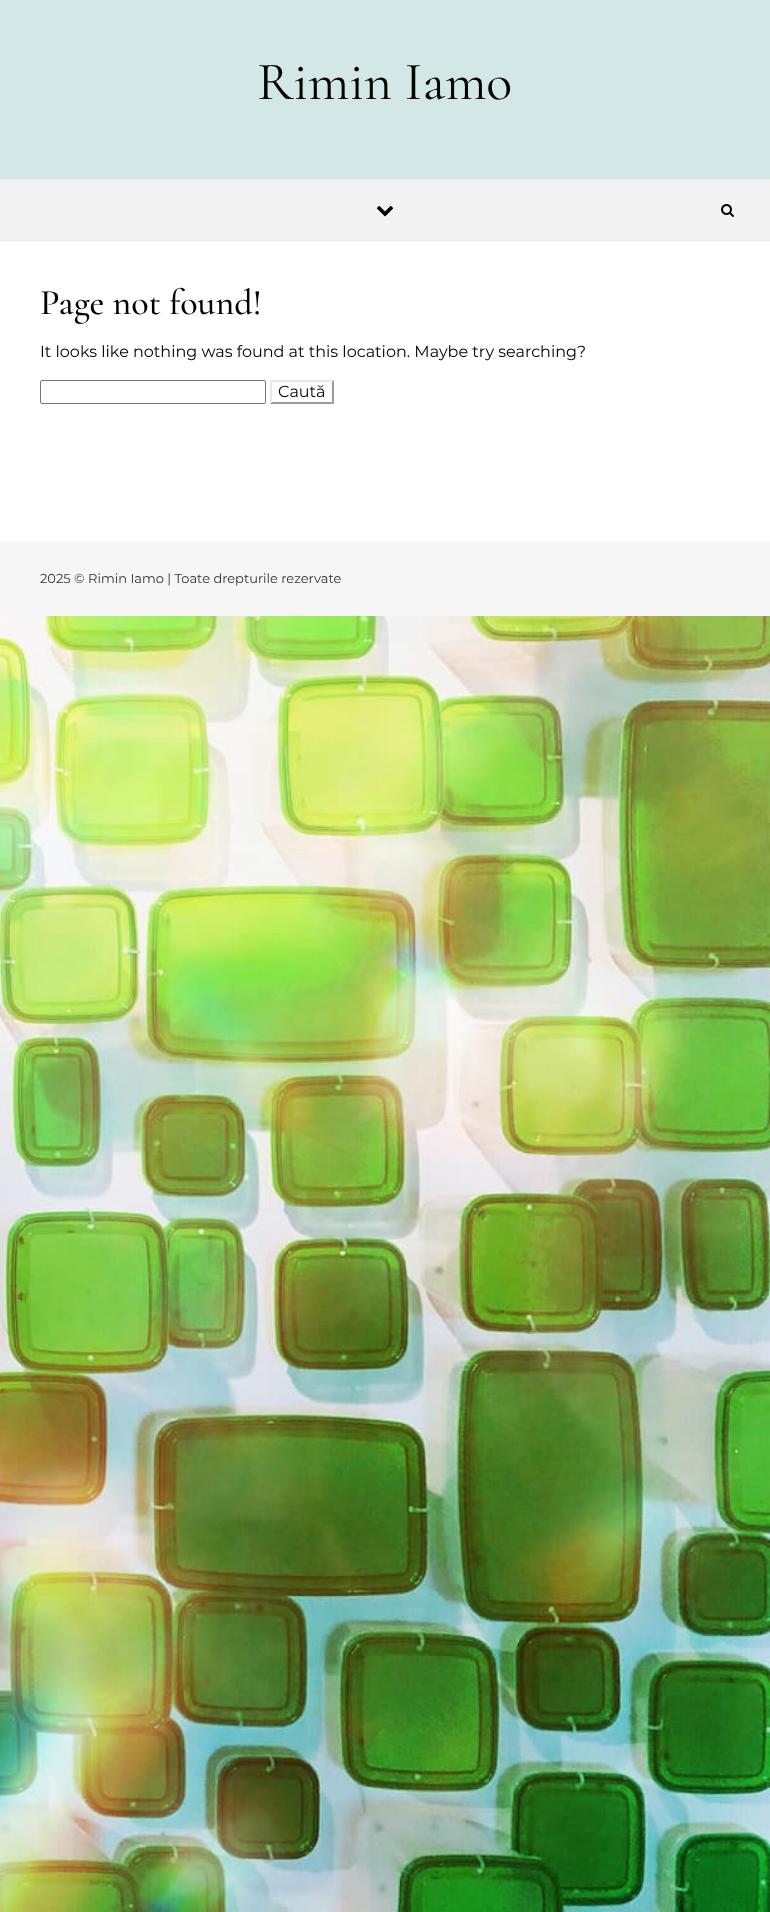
<!DOCTYPE html>
<meta charset="utf-8">
<style>body { margin: 0 } canvas { display: block }</style>
<canvas id="canvas" width="770" height="1912"></canvas>
<script type="module">
  const canvas = document.getElementById("canvas");
  const ctx = canvas.getContext("2d");
  ctx.miterLimit = 4;
  ctx.fontKerning = "normal";
  async function loadImage(src) {
    const img = new Image();
    img.src = src;
    await img.decode();
    return img;
  }

  ctx.fillStyle = "#ffffff";
  ctx.fillRect(0, 0, 770, 1912);
  ctx.drawImage(await loadImage("img1.png"), 0, 616, 770, 1296);
  ctx.fillStyle = "#d3e7e6";
  ctx.fillRect(0, 0, 770, 179);
  ctx.fillStyle = "#ebebeb";
  ctx.fillRect(0, 179, 770, 1);
  ctx.font = "54px Cormorant Garamond";
  ctx.fillStyle = "#030303";
  ctx.fillText("Rimin Iamo", 257, 99);
  ctx.fillStyle = "#f3f3f3";
  ctx.fillRect(0, 180, 770, 60);
  ctx.fillStyle = "#ebebeb";
  ctx.fillRect(0, 240, 770, 1);
  ctx.drawImage(await loadImage("img2.png"), 376, 206, 18, 11);
  ctx.drawImage(await loadImage("img3.png"), 721, 204, 13, 13);
  ctx.font = "500 36px Cormorant Garamond";
  ctx.fillStyle = "#030303";
  ctx.fillText("Page not found!", 40, 314);
  ctx.font = "100 16px Montserrat";
  ctx.fillText("It looks like nothing was found at this location. Maybe try searching?", 40, 357);
  ctx.beginPath();
  ctx.roundRect(40.5, 380.5, 225, 23, 1.5);
  ctx.strokeStyle = "#767676";
  ctx.stroke();
  ctx.fillStyle = "#e8e8e8";
  ctx.beginPath();
  ctx.moveTo(270, 380);
  ctx.lineTo(334, 380);
  ctx.lineTo(332, 382);
  ctx.lineTo(272, 382);
  ctx.closePath();
  ctx.fill();
  ctx.fillStyle = "#9b9b9b";
  ctx.beginPath();
  ctx.moveTo(334, 380);
  ctx.lineTo(334, 404);
  ctx.lineTo(332, 402);
  ctx.lineTo(332, 382);
  ctx.closePath();
  ctx.fill();
  ctx.beginPath();
  ctx.moveTo(334, 404);
  ctx.lineTo(270, 404);
  ctx.lineTo(272, 402);
  ctx.lineTo(332, 402);
  ctx.closePath();
  ctx.fill();
  ctx.fillStyle = "#e8e8e8";
  ctx.beginPath();
  ctx.moveTo(270, 404);
  ctx.lineTo(270, 380);
  ctx.lineTo(272, 382);
  ctx.lineTo(272, 402);
  ctx.closePath();
  ctx.fill();
  ctx.fillStyle = "#030303";
  ctx.fillText("Caută", 278, 397);
  ctx.fillStyle = "#f6f6f6";
  ctx.fillRect(0, 541, 770, 75);
  ctx.font = "100 13px Montserrat";
  ctx.fillStyle = "#333333";
  ctx.fillText("2025 © Rimin Iamo | Toate drepturile rezervate", 40, 583);
</script>
